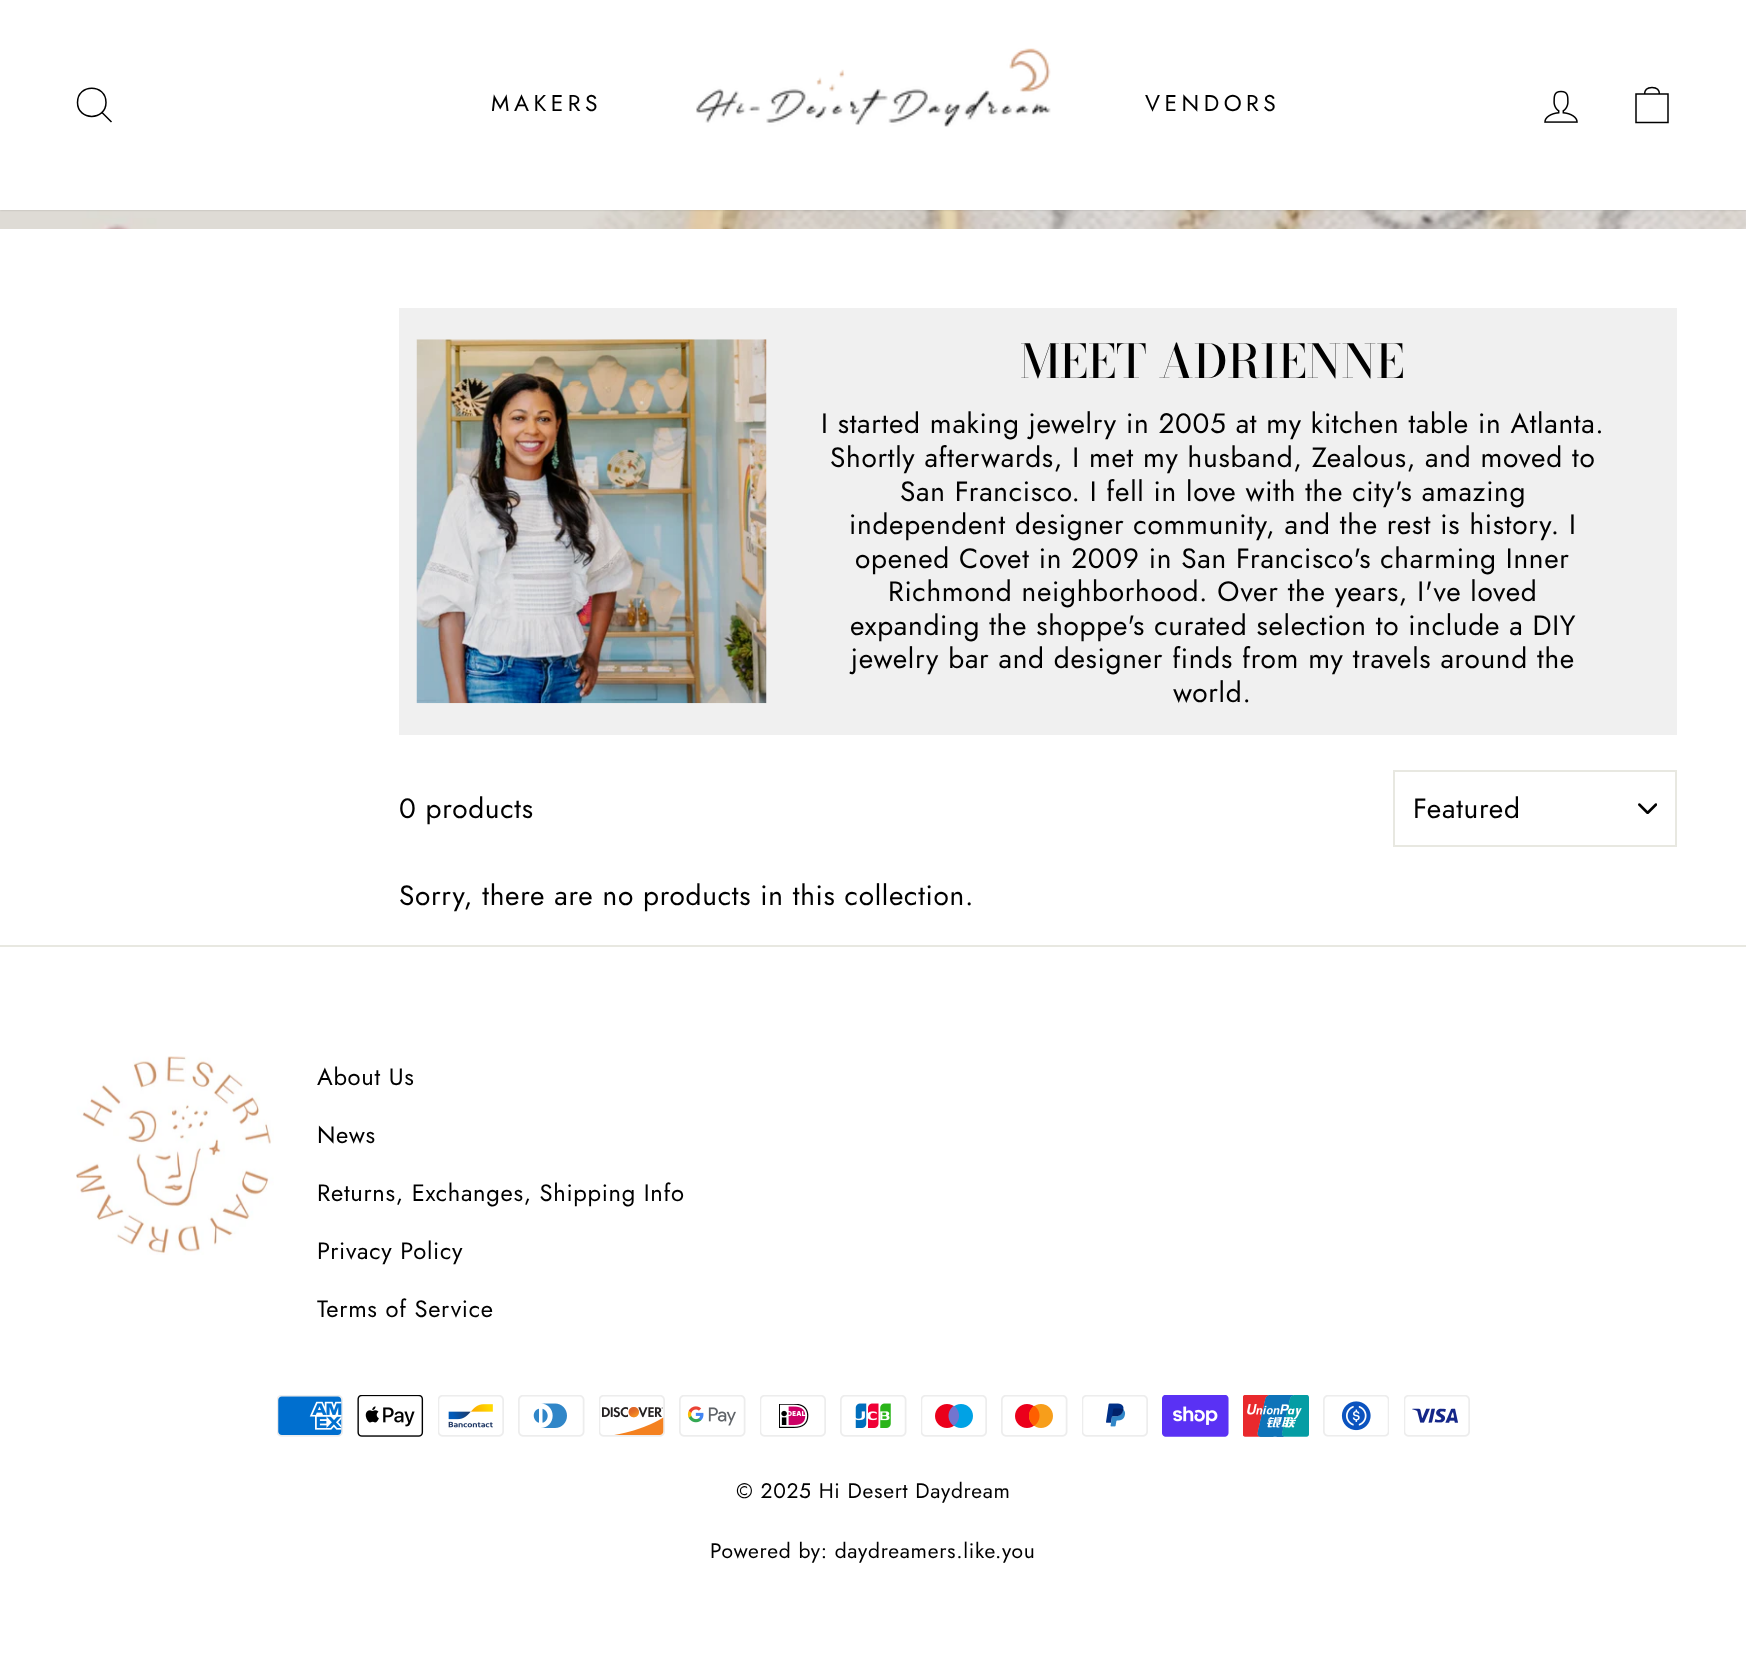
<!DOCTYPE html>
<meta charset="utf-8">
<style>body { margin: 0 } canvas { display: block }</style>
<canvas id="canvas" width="1746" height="1679"></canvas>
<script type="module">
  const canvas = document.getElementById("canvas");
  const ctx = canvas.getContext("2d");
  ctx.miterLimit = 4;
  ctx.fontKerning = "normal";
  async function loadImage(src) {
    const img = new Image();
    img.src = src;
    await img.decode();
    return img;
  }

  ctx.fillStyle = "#ffffff";
  ctx.fillRect(0, 0, 1746, 1679);
  ctx.fillStyle = "#f0f0f0";
  ctx.fillRect(399, 308, 1278, 427);
  ctx.drawImage(await loadImage("img3.png"), 0, 210, 1746, 19);
  ctx.fillStyle = "rgba(0, 0, 0, 0.2)";
  ctx.filter = "blur(1px)";
  ctx.beginPath();
  ctx.rect(0, 0, 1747, 210);
  ctx.fill();
  ctx.filter = "none";
  ctx.fillStyle = "#ffffff";
  ctx.fillRect(0, 0, 1746, 210);
  ctx.beginPath();
  ctx.moveTo(106, 102.5);
  ctx.bezierCurveTo(106, 121, 77.5, 121, 77.5, 102.5);
  ctx.bezierCurveTo(77.5, 83.5, 106, 83.5, 106, 102.5);
  ctx.closePath();
  ctx.moveTo(111.5, 122);
  ctx.lineTo(102, 112.5);
  ctx.strokeStyle = "#000000";
  ctx.lineWidth = 1.5;
  ctx.stroke();
  ctx.letterSpacing = "4.5px";
  ctx.font = "22.75px Jost";
  ctx.fillStyle = "#000000";
  ctx.fillText("MAKERS", 491, 111);
  ctx.drawImage(await loadImage("img1.png"), 696, 48, 355, 79);
  ctx.fillText("VENDORS", 1145, 111);
  ctx.drawImage(await loadImage("img2.png"), 1544, 90, 34, 33);
  ctx.beginPath();
  ctx.moveTo(1636, 94);
  ctx.lineTo(1668, 94);
  ctx.lineTo(1668, 122.5);
  ctx.lineTo(1636, 122.5);
  ctx.closePath();
  ctx.moveTo(1644.5, 94.5);
  ctx.bezierCurveTo(1644.5, 89, 1648, 87.5, 1652, 87.5);
  ctx.bezierCurveTo(1656, 87.5, 1659.5, 89, 1659.5, 94.5);
  ctx.stroke();
  ctx.drawImage(await loadImage("img4.png"), 416, 339, 351, 365);
  ctx.letterSpacing = "0px";
  ctx.font = "500 46.5px Bodoni Moda";
  ctx.fillText("MEET ADRIENNE", 1020, 378);
  ctx.letterSpacing = "0.7px";
  ctx.font = "28px Jost";
  ctx.fillText("I started making jewelry in 2005 at my kitchen table in Atlanta.", 821, 433);
  ctx.fillText("Shortly afterwards, I met my husband, Zealous, and moved to", 830, 467);
  ctx.fillText("San Francisco. I fell in love with the city's amazing", 900, 501);
  ctx.fillText("independent designer community, and the rest is history. I", 849, 534);
  ctx.fillText("opened Covet in 2009 in San Francisco's charming Inner", 855, 568);
  ctx.fillText("Richmond neighborhood. Over the years, I've loved", 888, 601);
  ctx.fillText("expanding the shoppe's curated selection to include a DIY", 850, 635);
  ctx.fillText("jewelry bar and designer finds from my travels around the", 851, 668);
  ctx.fillText("world.", 1173, 702);
  ctx.fillText("0 products", 399, 818);
  ctx.drawImage(await loadImage("img5.png"), 1638, 803, 19, 11);
  ctx.strokeStyle = "#e8e8e1";
  ctx.lineWidth = 2;
  ctx.strokeRect(1394, 771, 282, 75);
  ctx.fillText("Featured", 1413, 818);
  ctx.fillText("Sorry, there are no products in this collection.", 399, 905);
  ctx.fillStyle = "#e8e8e1";
  ctx.fillRect(0, 945, 1746, 2);
  ctx.drawImage(await loadImage("img6.png"), 76, 1056, 198, 199);
  ctx.font = "23.75px Jost";
  ctx.fillStyle = "#000000";
  ctx.fillText("About Us", 317, 1085);
  ctx.fillText("News", 317, 1143);
  ctx.fillText("Returns, Exchanges, Shipping Info", 317, 1201);
  ctx.fillText("Privacy Policy", 317, 1259);
  ctx.fillText("Terms of Service", 317, 1317);
  ctx.drawImage(await loadImage("img7.png"), 277, 1395, 66, 42);
  ctx.drawImage(await loadImage("img8.png"), 357, 1395, 67, 42);
  ctx.drawImage(await loadImage("img9.png"), 438, 1395, 66, 42);
  ctx.drawImage(await loadImage("img10.png"), 518, 1395, 67, 42);
  ctx.drawImage(await loadImage("img11.png"), 599, 1395, 66, 42);
  ctx.drawImage(await loadImage("img12.png"), 679, 1395, 67, 42);
  ctx.drawImage(await loadImage("img13.png"), 760, 1395, 66, 42);
  ctx.drawImage(await loadImage("img14.png"), 840, 1395, 67, 42);
  ctx.drawImage(await loadImage("img15.png"), 921, 1395, 66, 42);
  ctx.drawImage(await loadImage("img16.png"), 1001, 1395, 67, 42);
  ctx.drawImage(await loadImage("img17.png"), 1082, 1395, 66, 42);
  ctx.drawImage(await loadImage("img18.png"), 1162, 1395, 67, 42);
  ctx.drawImage(await loadImage("img19.png"), 1243, 1395, 66, 42);
  ctx.drawImage(await loadImage("img20.png"), 1323, 1395, 66, 42);
  ctx.drawImage(await loadImage("img21.png"), 1404, 1395, 66, 42);
  ctx.font = "21px Jost";
  ctx.fillText("© 2025 Hi Desert Daydream", 736, 1498);
  ctx.fillText("Powered by: daydreamers.like.you", 710, 1558);
</script>
